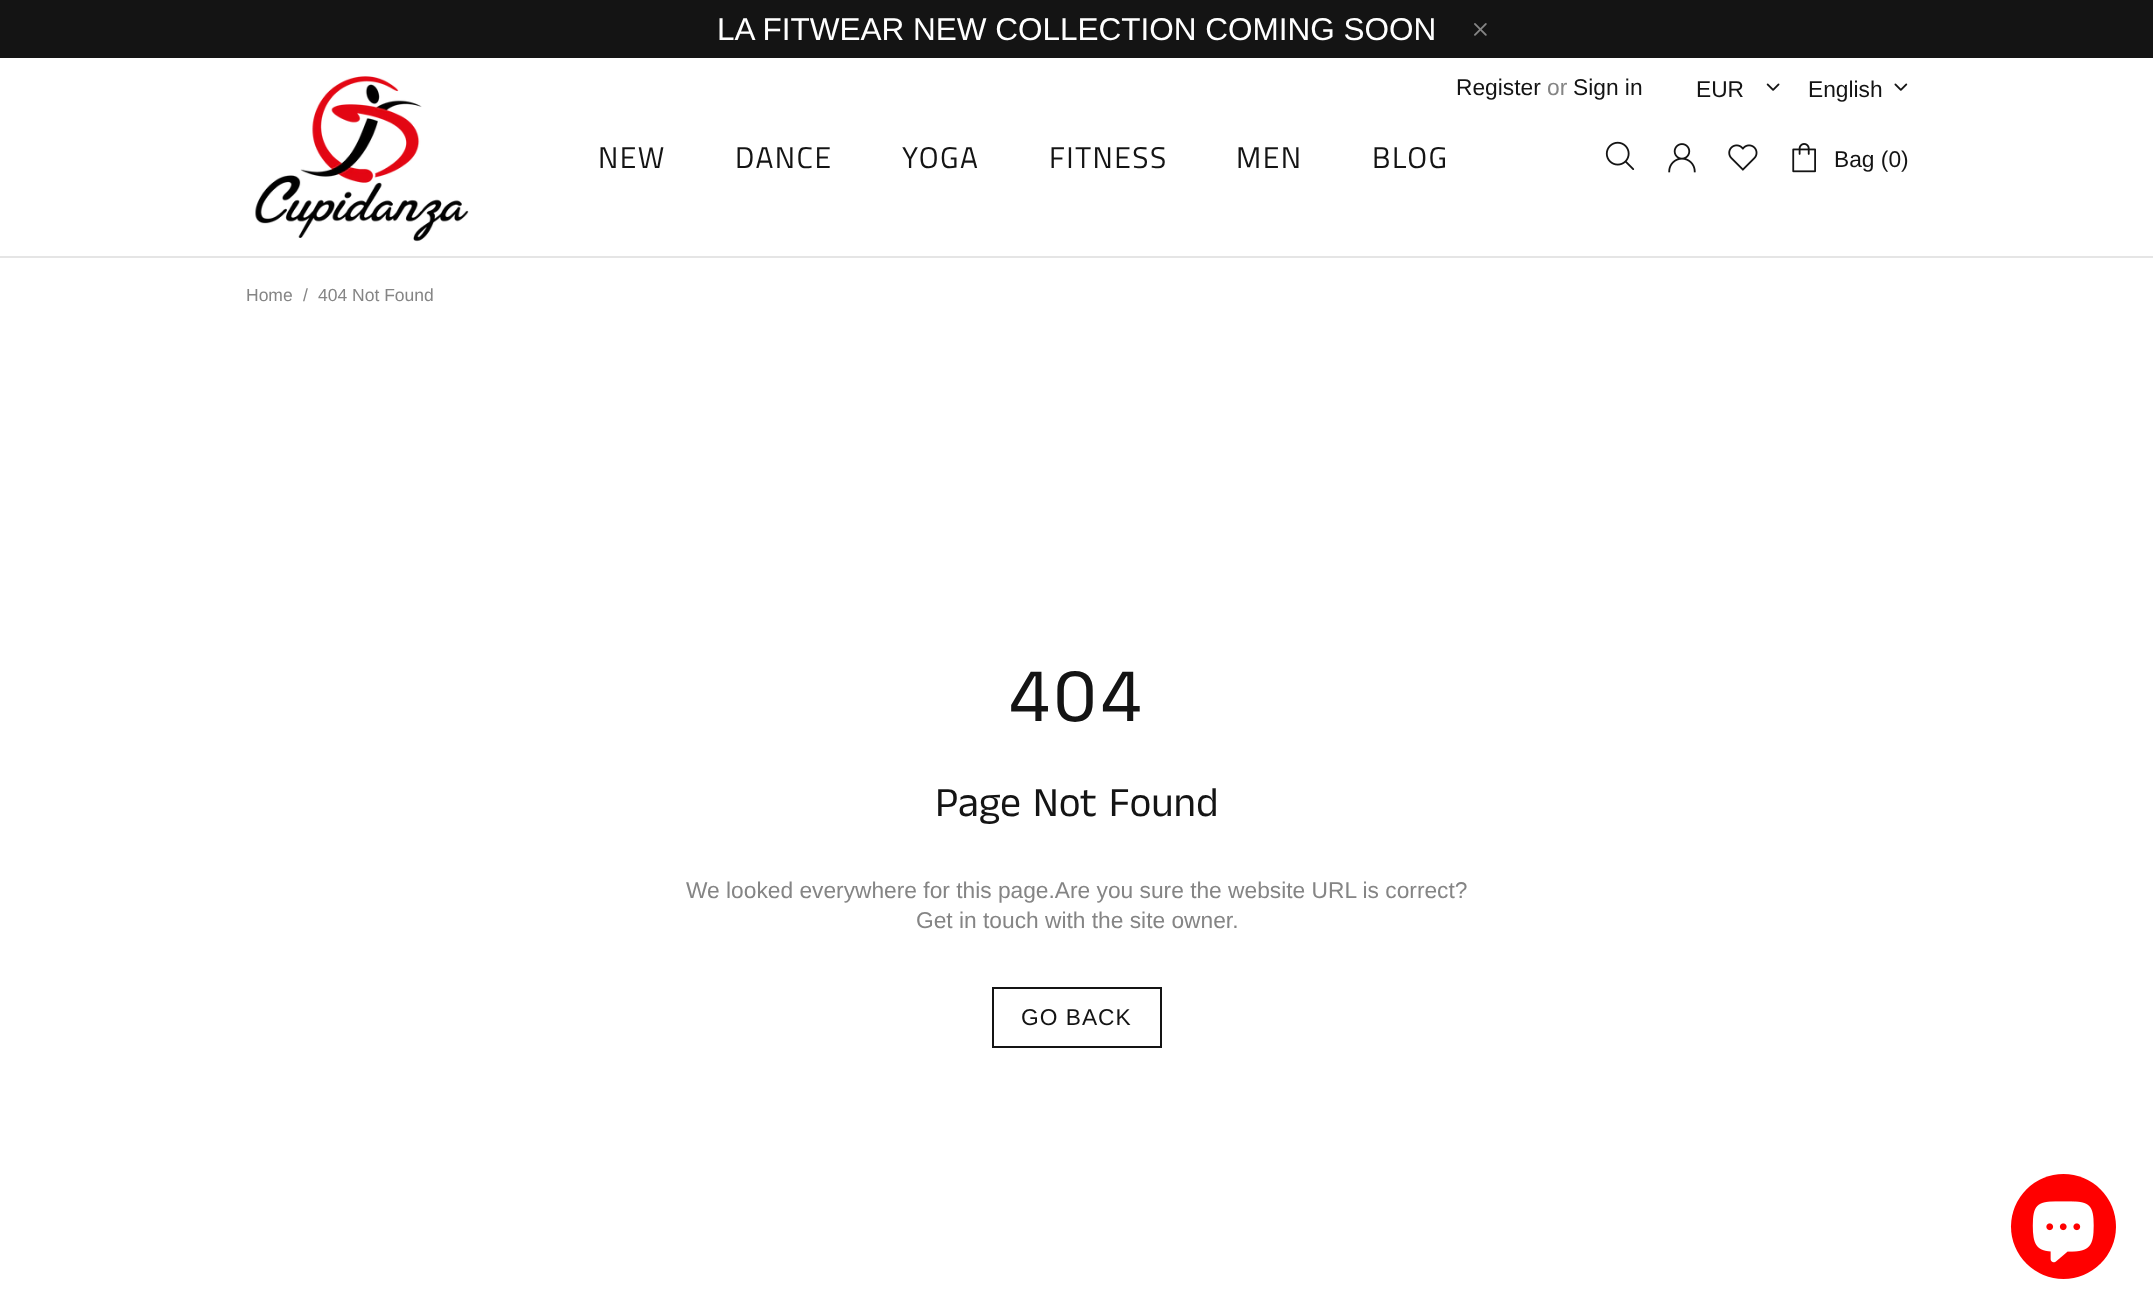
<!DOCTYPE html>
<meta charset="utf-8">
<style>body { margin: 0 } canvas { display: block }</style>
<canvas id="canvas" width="2153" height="1315"></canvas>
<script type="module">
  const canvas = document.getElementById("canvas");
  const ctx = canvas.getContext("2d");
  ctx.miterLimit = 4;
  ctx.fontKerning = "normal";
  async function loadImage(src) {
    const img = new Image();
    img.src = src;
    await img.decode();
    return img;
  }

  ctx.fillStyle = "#ffffff";
  ctx.fillRect(0, 0, 2153, 1315);
  ctx.fillStyle = "#141414";
  ctx.fillRect(0, 0, 2153, 58);
  ctx.font = "31.5px Arimo";
  ctx.fillStyle = "#ffffff";
  ctx.fillText("LA FITWEAR NEW COLLECTION COMING SOON", 717, 40);
  ctx.drawImage(await loadImage("img1.png"), 1474, 23, 13, 13);
  ctx.font = "22.75px Arimo";
  ctx.fillStyle = "#141414";
  ctx.fillText("Register", 1456, 95);
  ctx.fillStyle = "#858585";
  ctx.fillText("or", 1547, 95);
  ctx.fillStyle = "#141414";
  ctx.fillText("Sign in", 1573, 95);
  ctx.fillText("EUR", 1696, 97);
  ctx.drawImage(await loadImage("img2.png"), 1766, 83, 14, 8);
  ctx.fillText("English", 1808, 97);
  ctx.drawImage(await loadImage("img3.png"), 1894, 83, 14, 8);
  ctx.drawImage(await loadImage("img4.png"), 255, 76, 214, 166);
  ctx.letterSpacing = "1.5px";
  ctx.font = "30px Titillium Web";
  ctx.fillText("NEW", 598, 168);
  ctx.fillText("DANCE", 735, 168);
  ctx.fillText("YOGA", 902, 168);
  ctx.fillText("FITNESS", 1049, 168);
  ctx.fillText("MEN", 1236, 168);
  ctx.fillText("BLOG", 1372, 168);
  ctx.drawImage(await loadImage("img5.png"), 1605, 141, 30, 29);
  ctx.drawImage(await loadImage("img6.png"), 1668, 143, 28, 30);
  ctx.drawImage(await loadImage("img7.png"), 1728, 144, 30, 27);
  ctx.drawImage(await loadImage("img8.png"), 1792, 143, 24, 30);
  ctx.letterSpacing = "0px";
  ctx.font = "22.75px Arimo";
  ctx.fillText("Bag (0)", 1834, 167);
  ctx.fillStyle = "#e5e5e5";
  ctx.fillRect(0, 256, 2153, 2);
  ctx.font = "17.5px Arimo";
  ctx.fillStyle = "#858585";
  ctx.fillText("Home", 246, 301);
  ctx.fillText("/", 303, 301);
  ctx.fillText("404 Not Found", 318, 301);
  ctx.letterSpacing = "4px";
  ctx.font = "77px Anek Tamil";
  ctx.fillStyle = "#141414";
  ctx.fillText("404", 1009, 721);
  ctx.letterSpacing = "0px";
  ctx.font = "42px Anek Tamil";
  ctx.fillText("Page Not Found", 935, 816);
  ctx.font = "22.75px Arimo";
  ctx.fillStyle = "#858585";
  ctx.fillText("We looked everywhere for this page.Are you sure the website URL is correct?", 686, 898);
  ctx.fillText("Get in touch with the site owner.", 916, 928);
  ctx.strokeStyle = "#141414";
  ctx.lineWidth = 2;
  ctx.strokeRect(993, 988, 168, 59);
  ctx.letterSpacing = "1px";
  ctx.fillStyle = "#141414";
  ctx.fillText("GO BACK", 1021, 1025);
  ctx.fillStyle = "#ff0000";
  ctx.beginPath();
  ctx.arc(2063.5, 1226.5, 52.5, 0, Math.PI * 2);
  ctx.fill();
  ctx.drawImage(await loadImage("img9.png"), 2032, 1201, 62, 62);
</script>
